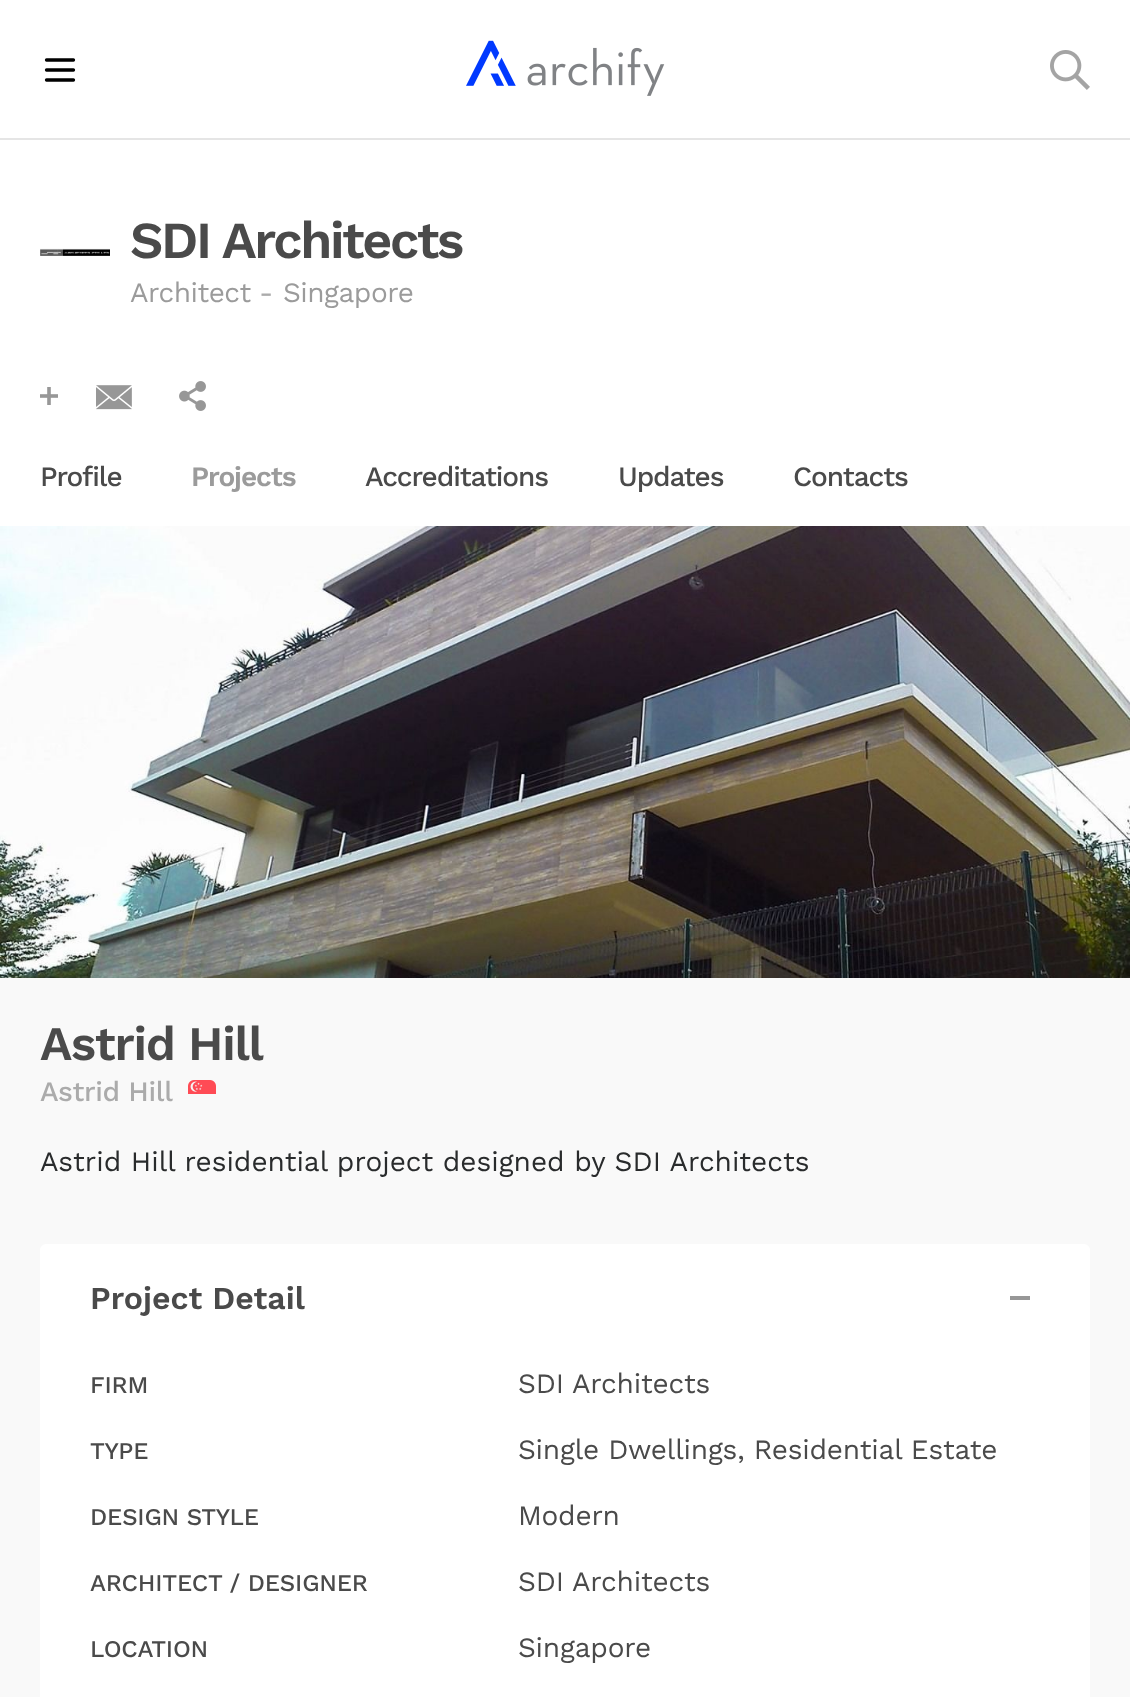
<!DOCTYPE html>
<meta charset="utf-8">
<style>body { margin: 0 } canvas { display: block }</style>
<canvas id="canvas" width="1130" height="1697"></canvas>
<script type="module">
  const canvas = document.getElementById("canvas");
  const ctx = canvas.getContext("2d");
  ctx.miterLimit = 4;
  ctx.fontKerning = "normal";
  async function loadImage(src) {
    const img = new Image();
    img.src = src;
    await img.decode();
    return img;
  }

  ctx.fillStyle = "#f9f9f9";
  ctx.fillRect(0, 0, 1130, 1697);
  ctx.fillStyle = "#ffffff";
  ctx.fillRect(0, 0, 1130, 138);
  ctx.fillStyle = "#e5e5e5";
  ctx.fillRect(0, 138, 1130, 2);
  ctx.beginPath();
  ctx.moveTo(46.5, 80);
  ctx.lineTo(73.5, 80);
  ctx.moveTo(46.5, 70);
  ctx.lineTo(73.5, 70);
  ctx.moveTo(46.5, 60);
  ctx.lineTo(73.5, 60);
  ctx.strokeStyle = "#000000";
  ctx.lineWidth = 3.3;
  ctx.lineCap = "round";
  ctx.stroke();
  ctx.drawImage(await loadImage("img1.png"), 466, 40, 199, 56);
  ctx.drawImage(await loadImage("img2.png"), 1050, 50, 40, 40);
  ctx.fillStyle = "#ffffff";
  ctx.fillRect(0, 140, 1130, 386);
  ctx.drawImage(await loadImage("img3.png"), 40, 248, 70, 8);
  ctx.letterSpacing = "-2.4px";
  ctx.font = "600 52px Work Sans";
  ctx.fillStyle = "#4a4a4a";
  ctx.fillText("SDI Architects", 130, 258);
  ctx.letterSpacing = "-0.5px";
  ctx.font = "28px Work Sans";
  ctx.fillStyle = "#9b9b9b";
  ctx.fillText("Architect", 130, 302);
  ctx.letterSpacing = "0px";
  ctx.fillStyle = "#ababab";
  ctx.fillText("-", 259, 302);
  ctx.letterSpacing = "-0.5px";
  ctx.fillStyle = "#9b9b9b";
  ctx.fillText("Singapore", 283, 302);
  ctx.drawImage(await loadImage("img4.png"), 40, 387, 18, 18);
  ctx.drawImage(await loadImage("img5.png"), 96, 385, 36, 25);
  ctx.drawImage(await loadImage("img6.png"), 179, 381, 27, 30);
  ctx.letterSpacing = "-1.1px";
  ctx.font = "500 28px Work Sans";
  ctx.fillStyle = "#4a4a4a";
  ctx.fillText("Profile", 40, 486);
  ctx.font = "600 28px Work Sans";
  ctx.fillStyle = "#9b9b9b";
  ctx.fillText("Projects", 191, 486);
  ctx.font = "500 28px Work Sans";
  ctx.fillStyle = "#4a4a4a";
  ctx.fillText("Accreditations", 365, 486);
  ctx.fillText("Updates", 618, 486);
  ctx.fillText("Contacts", 793, 486);
  ctx.drawImage(await loadImage("img7.png"), 0, 526, 1130, 452);
  ctx.letterSpacing = "-1.25px";
  ctx.font = "600 48px Work Sans";
  ctx.fillText("Astrid Hill", 40, 1060);
  ctx.letterSpacing = "-0.4px";
  ctx.font = "500 28px Work Sans";
  ctx.fillStyle = "#ababab";
  ctx.fillText("Astrid Hill", 40, 1101);
  ctx.drawImage(await loadImage("img8.png"), 188, 1080, 28, 14);
  ctx.letterSpacing = "0px";
  ctx.font = "28px Work Sans";
  ctx.fillStyle = "#292b2c";
  ctx.fillText("Astrid Hill residential project designed by SDI Architects", 40, 1171);
  ctx.fillStyle = "#ffffff";
  ctx.beginPath();
  ctx.roundRect(40, 1244, 1050, 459, 6);
  ctx.fill();
  ctx.font = "600 32px Work Sans";
  ctx.fillStyle = "#4a4a4a";
  ctx.fillText("Project Detail", 90, 1309);
  ctx.beginPath();
  ctx.moveTo(1011, 1297);
  ctx.lineTo(1029, 1297);
  ctx.lineTo(1029, 1299);
  ctx.lineTo(1011, 1299);
  ctx.closePath();
  ctx.strokeStyle = "#979797";
  ctx.lineWidth = 2;
  ctx.lineCap = "butt";
  ctx.stroke();
  ctx.letterSpacing = "-0.2px";
  ctx.font = "500 24px Work Sans";
  ctx.fillText("FIRM", 90, 1393);
  ctx.font = "28px Work Sans";
  ctx.fillText("SDI Architects", 518, 1393);
  ctx.font = "500 24px Work Sans";
  ctx.fillText("TYPE", 90, 1459);
  ctx.font = "28px Work Sans";
  ctx.fillText("Single Dwellings, Residential Estate", 518, 1459);
  ctx.font = "500 24px Work Sans";
  ctx.fillText("DESIGN STYLE", 90, 1525);
  ctx.font = "28px Work Sans";
  ctx.fillText("Modern", 518, 1525);
  ctx.font = "500 24px Work Sans";
  ctx.fillText("ARCHITECT / DESIGNER", 90, 1591);
  ctx.font = "28px Work Sans";
  ctx.fillText("SDI Architects", 518, 1591);
  ctx.font = "500 24px Work Sans";
  ctx.fillText("LOCATION", 90, 1657);
  ctx.font = "28px Work Sans";
  ctx.fillText("Singapore", 518, 1657);
</script>
